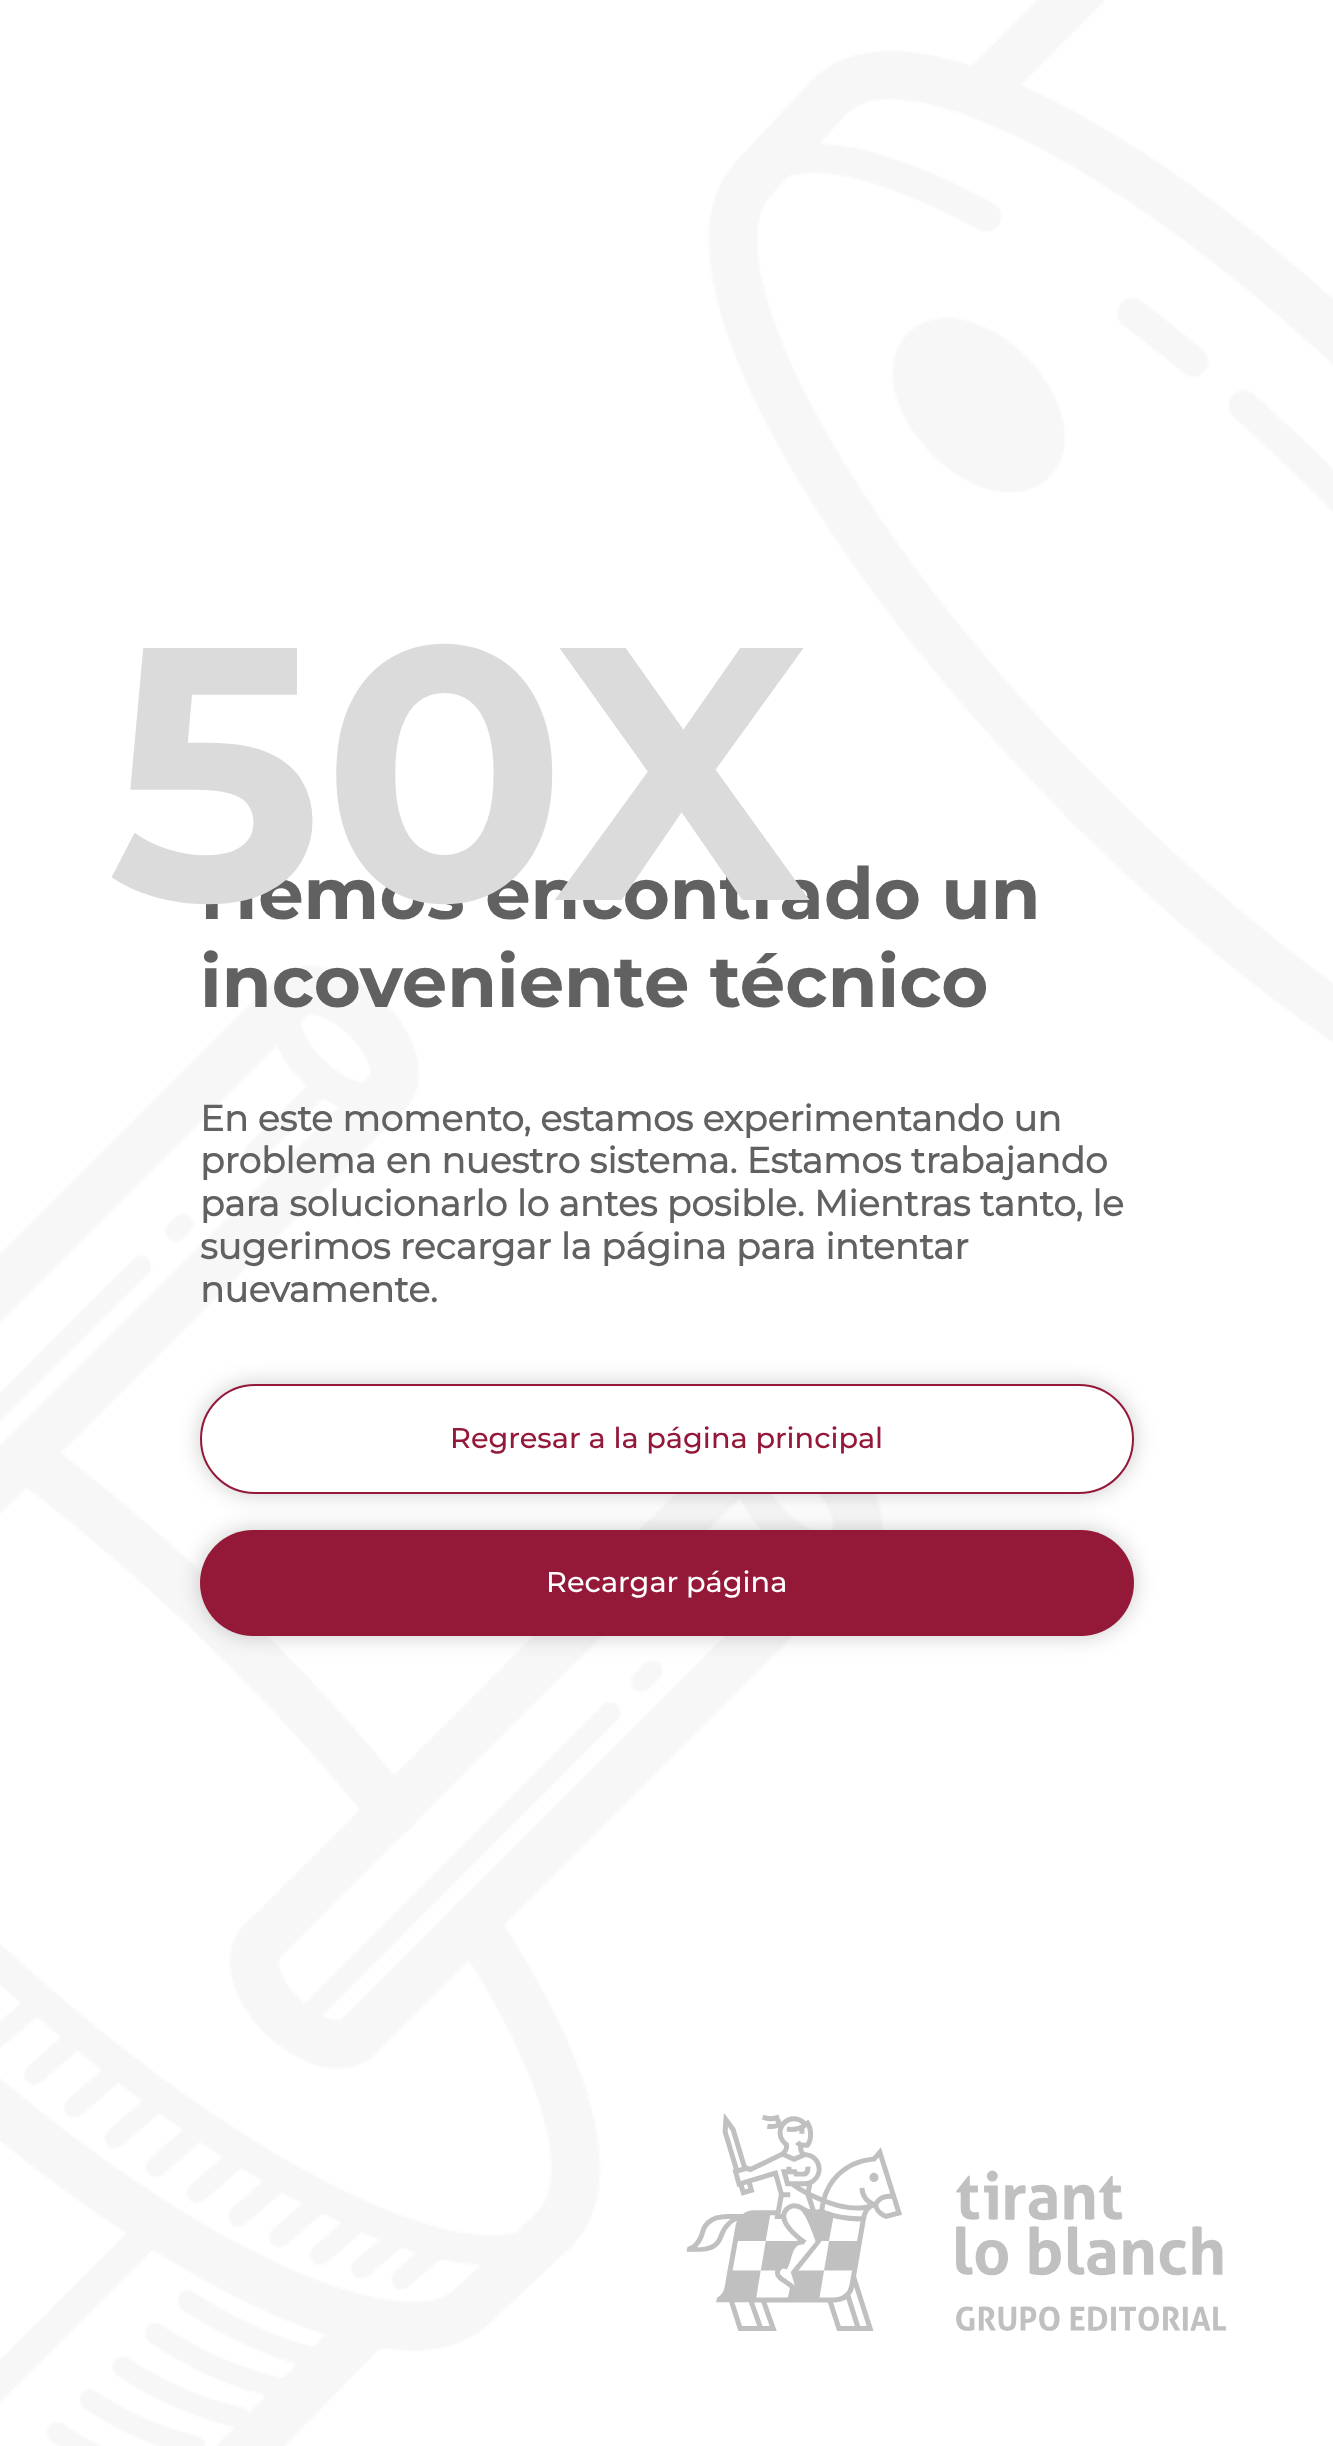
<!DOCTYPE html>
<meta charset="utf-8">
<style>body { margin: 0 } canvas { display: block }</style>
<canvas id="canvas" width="1333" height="2446"></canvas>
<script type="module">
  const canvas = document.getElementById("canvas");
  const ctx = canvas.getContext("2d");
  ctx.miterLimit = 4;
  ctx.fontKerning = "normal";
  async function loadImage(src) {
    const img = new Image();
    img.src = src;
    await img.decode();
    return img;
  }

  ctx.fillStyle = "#ffffff";
  ctx.fillRect(0, 0, 1333, 2446);
  ctx.drawImage(await loadImage("img1.png"), 0, 0, 1333, 2446);
  ctx.font = "bold 72px Montserrat";
  ctx.fillStyle = "#616161";
  ctx.fillText("Hemos encontrado un", 200, 919);
  ctx.font = "bold 360px Montserrat";
  ctx.fillStyle = "#dbdbdb";
  ctx.fillText("50X", 108, 900);
  ctx.font = "bold 72px Montserrat";
  ctx.fillStyle = "#616161";
  ctx.fillText("incoveniente técnico", 200, 1007);
  ctx.font = "bold 36px 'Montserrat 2'";
  ctx.fillText("En este momento, estamos experimentando un", 200, 1131);
  ctx.fillText("problema en nuestro sistema. Estamos trabajando", 200, 1173);
  ctx.fillText("para solucionarlo lo antes posible. Mientras tanto, le", 200, 1216);
  ctx.fillText("sugerimos recargar la página para intentar", 200, 1259);
  ctx.fillText("nuevamente.", 200, 1302);
  ctx.fillStyle = "rgba(0, 0, 0, 0.2)";
  ctx.filter = "blur(11px)";
  ctx.beginPath();
  ctx.roundRect(200, 1384, 934, 110, 55);
  ctx.fill();
  ctx.filter = "none";
  ctx.fillStyle = "#ffffff";
  ctx.beginPath();
  ctx.roundRect(201, 1385, 932, 108, 54);
  ctx.fill();
  ctx.strokeStyle = "#941838";
  ctx.lineWidth = 2;
  ctx.stroke();
  ctx.font = "500 28.75px Montserrat";
  ctx.fillStyle = "#941838";
  ctx.fillText("Regresar a la página principal", 450, 1448);
  ctx.fillStyle = "rgba(0, 0, 0, 0.2)";
  ctx.filter = "blur(11px)";
  ctx.beginPath();
  ctx.roundRect(200, 1530, 934, 106, 53);
  ctx.fill();
  ctx.filter = "none";
  ctx.fillStyle = "#941838";
  ctx.beginPath();
  ctx.roundRect(200, 1530, 934, 106, 53);
  ctx.fill();
  ctx.fillStyle = "#ffffff";
  ctx.fillText("Recargar página", 546, 1592);
  ctx.drawImage(await loadImage("img2.png"), 686, 2113, 540, 218);
</script>
